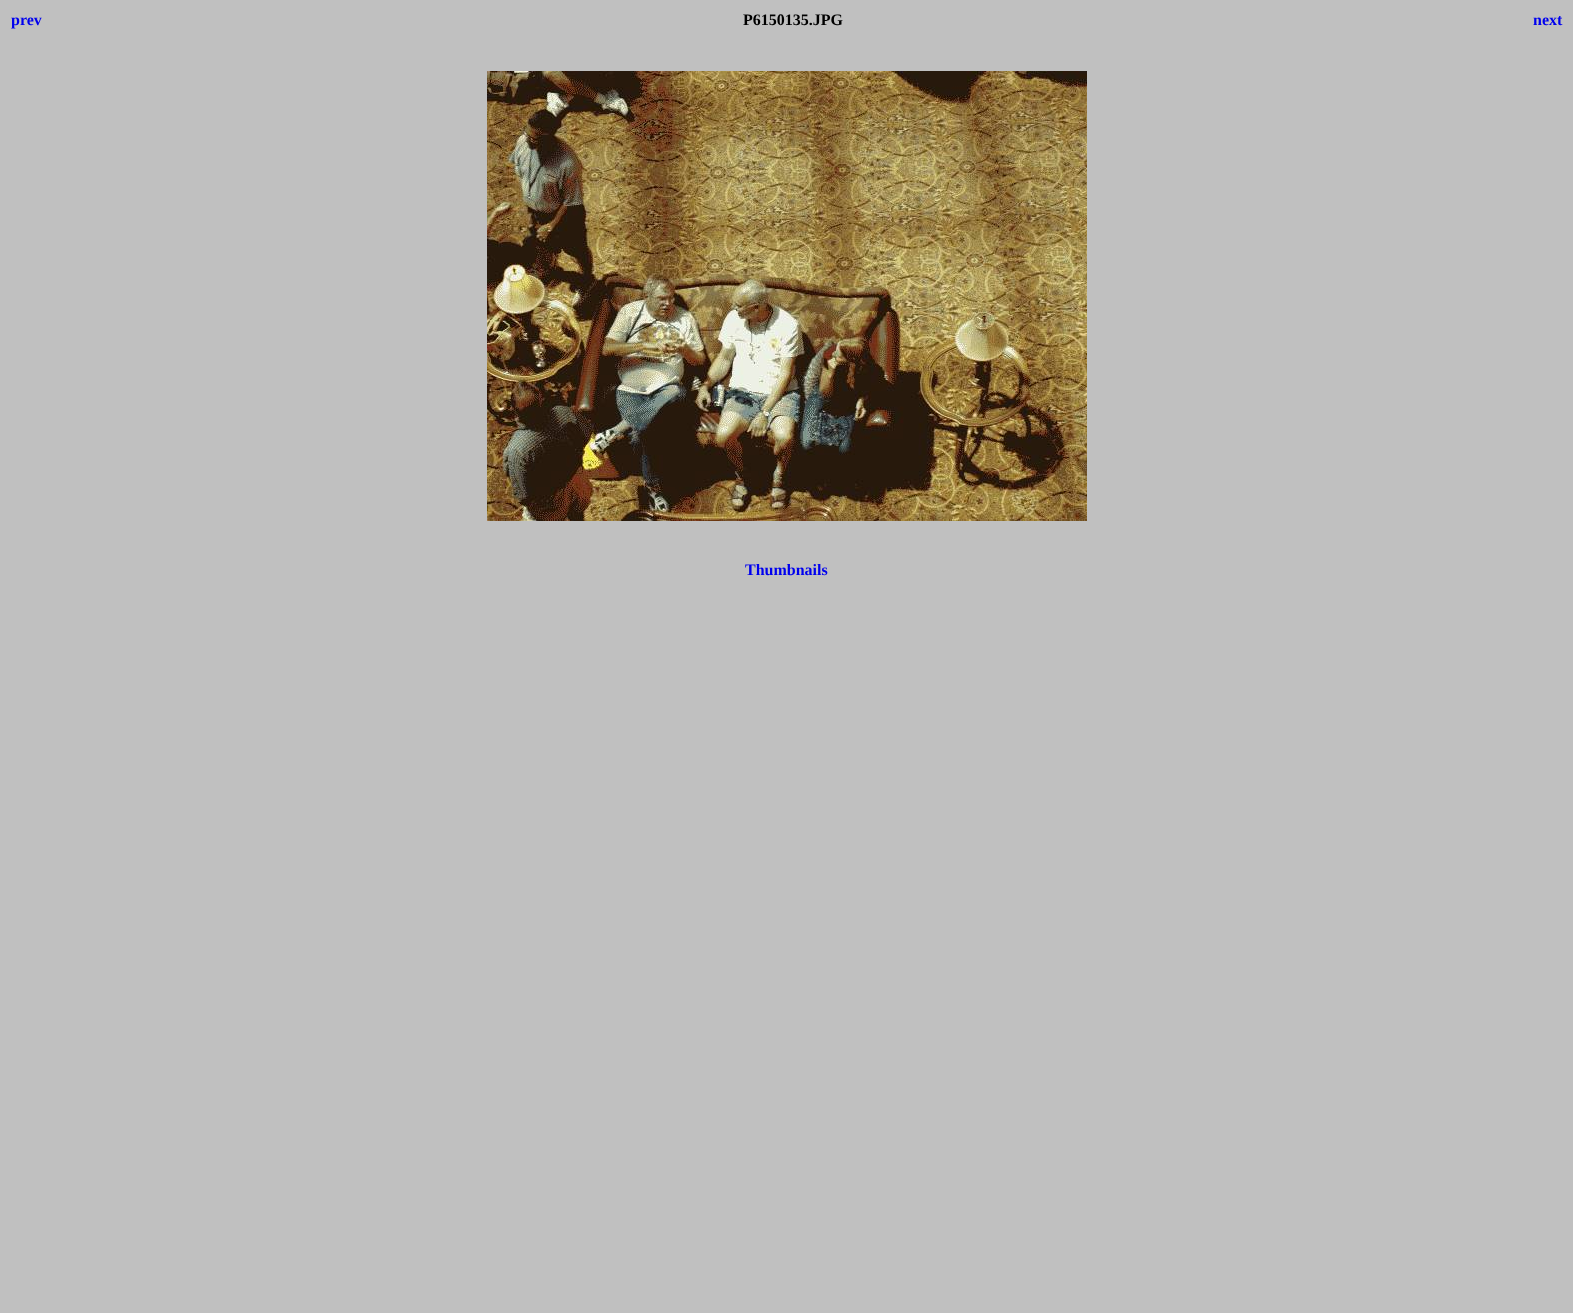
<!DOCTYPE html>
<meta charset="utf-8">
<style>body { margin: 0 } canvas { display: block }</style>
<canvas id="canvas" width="1573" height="1313"></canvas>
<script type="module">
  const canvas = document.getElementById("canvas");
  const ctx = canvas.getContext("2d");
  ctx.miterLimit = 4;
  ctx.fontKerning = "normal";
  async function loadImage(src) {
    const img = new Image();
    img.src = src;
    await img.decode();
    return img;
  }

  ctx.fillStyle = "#c0c0c0";
  ctx.fillRect(0, 0, 1573, 1313);
  ctx.font = "bold 16px Liberation Serif";
  ctx.fillStyle = "#0000ee";
  ctx.fillText("prev", 11, 25);
  ctx.fillStyle = "#000000";
  ctx.fillText("P6150135.JPG", 743, 25);
  ctx.fillStyle = "#0000ee";
  ctx.fillText("next", 1533, 25);
  ctx.drawImage(await loadImage("img1.png"), 487, 71, 600, 450);
  ctx.fillText("Thumbnails", 745, 575);
</script>
